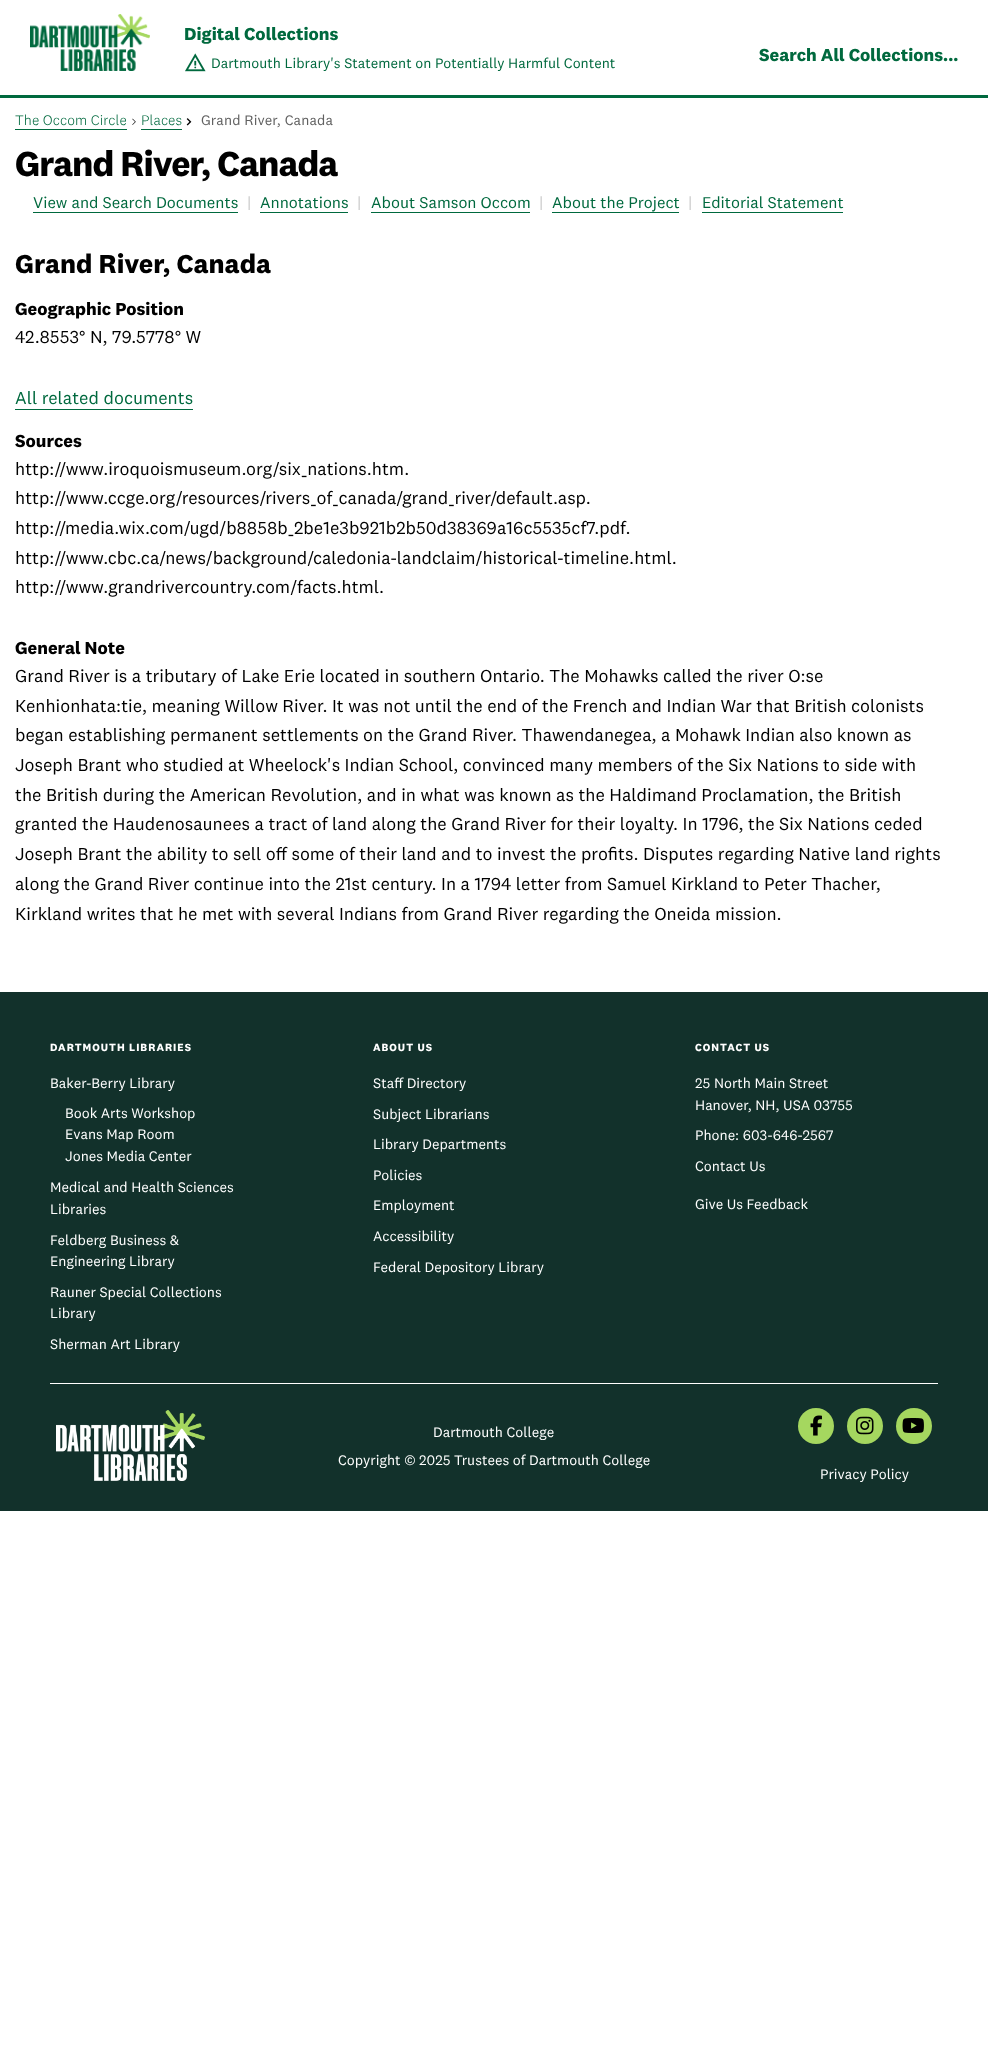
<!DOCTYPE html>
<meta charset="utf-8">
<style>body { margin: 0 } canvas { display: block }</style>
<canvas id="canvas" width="988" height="2050"></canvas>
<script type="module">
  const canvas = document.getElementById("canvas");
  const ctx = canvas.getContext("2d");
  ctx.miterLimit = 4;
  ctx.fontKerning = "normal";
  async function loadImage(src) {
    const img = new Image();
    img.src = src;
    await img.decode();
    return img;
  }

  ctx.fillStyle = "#ffffff";
  ctx.fillRect(0, 0, 988, 2050);
  ctx.fillStyle = "#00693e";
  ctx.fillRect(0, 95, 988, 3);
  ctx.drawImage(await loadImage("img1.png"), 30, 14, 120, 57);
  ctx.font = "bold 18px 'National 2'";
  ctx.fillText("Digital Collections", 184, 40);
  ctx.drawImage(await loadImage("img2.png"), 185, 53, 21, 19);
  ctx.font = "14.4px 'National 2'";
  ctx.fillText("Dartmouth Library's Statement on Potentially Harmful Content", 211, 68);
  ctx.font = "bold 18px 'National 2'";
  ctx.fillText("Search All Collections...", 759, 61);
  ctx.letterSpacing = "0.1px";
  ctx.font = "300 14.4px 'National 2'";
  ctx.fillText("The Occom Circle", 15, 125);
  ctx.fillRect(15, 129, 112, 1);
  ctx.drawImage(await loadImage("img3.png"), 132, 118, 4, 7);
  ctx.fillText("Places", 141, 125);
  ctx.fillRect(141, 129, 41, 1);
  ctx.drawImage(await loadImage("img4.png"), 186, 118, 6, 8);
  ctx.font = "14.4px 'National 2'";
  ctx.fillStyle = "#616161";
  ctx.fillText("Grand River, Canada", 201, 125);
  ctx.letterSpacing = "-1px";
  ctx.font = "bold 36px 'National 2'";
  ctx.fillStyle = "#000000";
  ctx.fillText("Grand River, Canada", 15, 176);
  ctx.letterSpacing = "0px";
  ctx.font = "16.25px 'National 2'";
  ctx.fillStyle = "#00693e";
  ctx.fillText("View and Search Documents", 33, 208);
  ctx.fillRect(33, 212, 205, 1);
  ctx.fillStyle = "#cccccc";
  ctx.fillText("|", 247, 208);
  ctx.fillStyle = "#00693e";
  ctx.fillText("Annotations", 260, 208);
  ctx.fillRect(260, 212, 88, 1);
  ctx.fillStyle = "#cccccc";
  ctx.fillText("|", 357, 208);
  ctx.fillStyle = "#00693e";
  ctx.fillText("About Samson Occom", 371, 208);
  ctx.fillRect(371, 212, 159, 1);
  ctx.fillStyle = "#cccccc";
  ctx.fillText("|", 539, 208);
  ctx.fillStyle = "#00693e";
  ctx.fillText("About the Project", 552, 208);
  ctx.fillRect(552, 212, 127, 1);
  ctx.fillStyle = "#cccccc";
  ctx.fillText("|", 688, 208);
  ctx.fillStyle = "#00693e";
  ctx.fillText("Editorial Statement", 702, 208);
  ctx.fillRect(702, 212, 141, 1);
  ctx.font = "bold 27px 'National 2'";
  ctx.fillStyle = "#000000";
  ctx.fillText("Grand River, Canada", 15, 273);
  ctx.font = "bold 18px 'National 2'";
  ctx.fillText("Geographic Position", 15, 315);
  ctx.font = "18px 'National 2'";
  ctx.fillText("42.8553° N, 79.5778° W", 15, 343);
  ctx.fillStyle = "#00693e";
  ctx.fillText("All related documents", 15, 404);
  ctx.fillRect(15, 409, 178, 1);
  ctx.font = "bold 18px 'National 2'";
  ctx.fillStyle = "#000000";
  ctx.fillText("Sources", 15, 447);
  ctx.font = "18px 'National 2'";
  ctx.fillText("http://www.iroquoismuseum.org/six_nations.htm.", 15, 475);
  ctx.fillText("http://www.ccge.org/resources/rivers_of_canada/grand_river/default.asp.", 15, 504);
  ctx.fillText("http://media.wix.com/ugd/b8858b_2be1e3b921b2b50d38369a16c5535cf7.pdf.", 15, 534);
  ctx.fillText("http://www.cbc.ca/news/background/caledonia-landclaim/historical-timeline.html.", 15, 564);
  ctx.fillText("http://www.grandrivercountry.com/facts.html.", 15, 593);
  ctx.font = "bold 18px 'National 2'";
  ctx.fillText("General Note", 15, 654);
  ctx.font = "18px 'National 2'";
  ctx.fillText("Grand River is a tributary of Lake Erie located in southern Ontario. The Mohawks called the river O:se", 15, 682);
  ctx.fillText("Kenhionhata:tie, meaning Willow River. It was not until the end of the French and Indian War that British colonists", 15, 712);
  ctx.fillText("began establishing permanent settlements on the Grand River. Thawendanegea, a Mohawk Indian also known as", 15, 741);
  ctx.fillText("Joseph Brant who studied at Wheelock's Indian School, convinced many members of the Six Nations to side with", 15, 771);
  ctx.fillText("the British during the American Revolution, and in what was known as the Haldimand Proclamation, the British", 15, 801);
  ctx.fillText("granted the Haudenosaunees a tract of land along the Grand River for their loyalty. In 1796, the Six Nations ceded", 15, 830);
  ctx.fillText("Joseph Brant the ability to sell off some of their land and to invest the profits. Disputes regarding Native land rights", 15, 860);
  ctx.fillText("along the Grand River continue into the 21st century. In a 1794 letter from Samuel Kirkland to Peter Thacher,", 15, 890);
  ctx.fillText("Kirkland writes that he met with several Indians from Grand River regarding the Oneida mission.", 15, 920);
  ctx.fillStyle = "#12312b";
  ctx.fillRect(0, 992, 988, 519);
  ctx.fillStyle = "#ffffff";
  ctx.fillRect(50, 1383, 888, 1);
  ctx.letterSpacing = "1px";
  ctx.font = "bold 10.75px 'National 2'";
  ctx.fillText("DARTMOUTH LIBRARIES", 50, 1051);
  ctx.letterSpacing = "0px";
  ctx.font = "14.4px 'National 2'";
  ctx.fillText("Baker-Berry Library", 50, 1088);
  ctx.fillText("Book Arts Workshop", 65, 1118);
  ctx.fillText("Evans Map Room", 65, 1139);
  ctx.fillText("Jones Media Center", 65, 1161);
  ctx.fillText("Medical and Health Sciences", 50, 1192);
  ctx.fillText("Libraries", 50, 1214);
  ctx.fillText("Feldberg Business &", 50, 1245);
  ctx.fillText("Engineering Library", 50, 1266);
  ctx.fillText("Rauner Special Collections", 50, 1297);
  ctx.fillText("Library", 50, 1318);
  ctx.fillText("Sherman Art Library", 50, 1349);
  ctx.letterSpacing = "1px";
  ctx.font = "bold 10.75px 'National 2'";
  ctx.fillText("ABOUT US", 373, 1051);
  ctx.letterSpacing = "0px";
  ctx.font = "14.4px 'National 2'";
  ctx.fillText("Staff Directory", 373, 1088);
  ctx.fillText("Subject Librarians", 373, 1119);
  ctx.fillText("Library Departments", 373, 1149);
  ctx.fillText("Policies", 373, 1180);
  ctx.fillText("Employment", 373, 1210);
  ctx.fillText("Accessibility", 373, 1241);
  ctx.fillText("Federal Depository Library", 373, 1272);
  ctx.letterSpacing = "1px";
  ctx.font = "bold 10.75px 'National 2'";
  ctx.fillText("CONTACT US", 695, 1051);
  ctx.letterSpacing = "0px";
  ctx.font = "14.4px 'National 2'";
  ctx.fillText("25 North Main Street", 695, 1088);
  ctx.fillText("Hanover, NH, USA 03755", 695, 1110);
  ctx.fillText("Phone: 603-646-2567", 695, 1140);
  ctx.fillText("Contact Us", 695, 1171);
  ctx.fillText("Give Us Feedback", 695, 1209);
  ctx.drawImage(await loadImage("img5.png"), 56, 1410, 149, 71);
  ctx.fillText("Dartmouth College", 433, 1437);
  ctx.fillText("Copyright © 2025 Trustees of Dartmouth College", 338, 1465);
  ctx.fillStyle = "#a5d75f";
  ctx.beginPath();
  ctx.arc(816, 1426, 18, 0, Math.PI * 2);
  ctx.fill();
  ctx.drawImage(await loadImage("img6.png"), 810, 1415, 12, 21);
  ctx.beginPath();
  ctx.arc(865, 1426, 18, 0, Math.PI * 2);
  ctx.fill();
  ctx.drawImage(await loadImage("img7.png"), 856, 1416, 18, 19);
  ctx.beginPath();
  ctx.arc(914, 1426, 18, 0, Math.PI * 2);
  ctx.fill();
  ctx.drawImage(await loadImage("img8.png"), 902, 1418, 22, 15);
  ctx.fillStyle = "#ffffff";
  ctx.fillText("Privacy Policy", 820, 1479);
</script>
